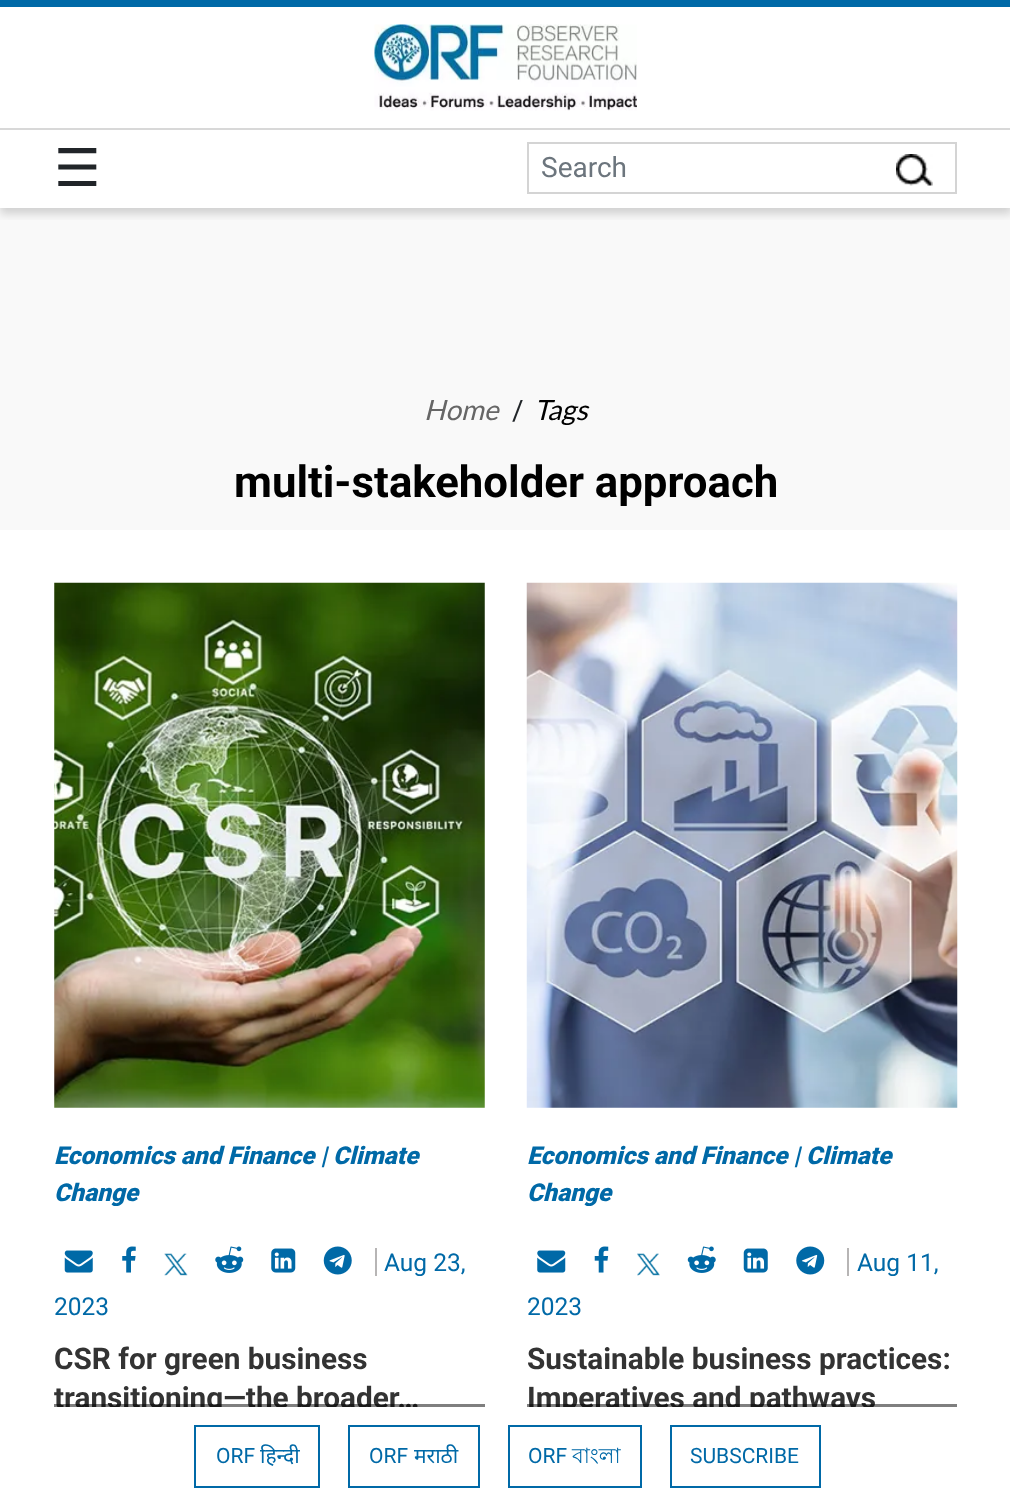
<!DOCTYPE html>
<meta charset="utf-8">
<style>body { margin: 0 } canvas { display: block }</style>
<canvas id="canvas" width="1010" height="1501"></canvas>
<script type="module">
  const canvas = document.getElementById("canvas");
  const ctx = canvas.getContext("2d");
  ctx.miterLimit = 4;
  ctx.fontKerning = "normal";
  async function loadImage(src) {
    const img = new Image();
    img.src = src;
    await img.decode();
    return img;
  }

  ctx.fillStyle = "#f9f9f9";
  ctx.fillRect(0, 0, 1010, 1501);
  ctx.fillStyle = "#ffffff";
  ctx.fillRect(0, 7, 1010, 201);
  ctx.fillStyle = "#0069a7";
  ctx.fillRect(0, 0, 1010, 7);
  ctx.drawImage(await loadImage("img1.png"), 374, 24, 263, 87);
  ctx.save();
  ctx.beginPath();
  ctx.rect(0, 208, 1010, 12);
  ctx.clip();
  ctx.fillStyle = "rgba(0, 0, 0, 0.16)";
  ctx.filter = "blur(5px)";
  ctx.beginPath();
  ctx.rect(0, 133, 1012, 81);
  ctx.fill();
  ctx.filter = "none";
  ctx.restore();
  ctx.fillStyle = "#d8d8d8";
  ctx.fillRect(0, 128, 1010, 2);
  ctx.font = "52px DejaVu Sans";
  ctx.fillStyle = "#212529";
  ctx.fillText("☰", 54, 186);
  ctx.strokeStyle = "#d4d4d4";
  ctx.lineWidth = 2;
  ctx.strokeRect(528, 143, 428, 50);
  ctx.font = "28px Roboto";
  ctx.fillStyle = "#6c757d";
  ctx.fillText("Search", 541, 177);
  ctx.drawImage(await loadImage("img2.png"), 896, 154, 37, 32);
  ctx.font = "italic 28px Lato";
  ctx.fillStyle = "#666666";
  ctx.fillText("Home", 424, 420);
  ctx.font = "28px Roboto";
  ctx.fillStyle = "#212529";
  ctx.fillText("/", 512, 420);
  ctx.font = "italic 28px Lato";
  ctx.fillStyle = "#000000";
  ctx.fillText("Tags", 534, 420);
  ctx.font = "bold 43.75px Roboto";
  ctx.fillText("multi-stakeholder approach", 234, 497);
  ctx.fillStyle = "#ffffff";
  ctx.fillRect(0, 530, 1010, 877);
  ctx.drawImage(await loadImage("img3.png"), 54, 582, 431, 526);
  ctx.font = "bold 29.75px Roboto";
  ctx.fillStyle = "#333333";
  ctx.fillText("transitioning—the broader…", 54, 1408);
  ctx.fillStyle = "rgba(0, 0, 0, 0.5)";
  ctx.fillRect(54, 1404, 431, 3);
  ctx.font = "italic 900 24.5px Roboto";
  ctx.fillStyle = "#0069a7";
  ctx.fillText("Economics and Finance | Climate", 54, 1164);
  ctx.fillText("Change", 54, 1201);
  ctx.drawImage(await loadImage("img4.png"), 64, 1250, 29, 23);
  ctx.drawImage(await loadImage("img5.png"), 122, 1246, 14, 27);
  ctx.drawImage(await loadImage("img6.png"), 164, 1253, 24, 23);
  ctx.drawImage(await loadImage("img7.png"), 215, 1246, 29, 27);
  ctx.drawImage(await loadImage("img8.png"), 271, 1248, 25, 25);
  ctx.drawImage(await loadImage("img9.png"), 323, 1246, 29, 29);
  ctx.font = "24.5px Roboto";
  ctx.fillText("Aug 23,", 384, 1271);
  ctx.fillStyle = "#b7b5b5";
  ctx.fillRect(375, 1248, 2, 28);
  ctx.fillStyle = "#0069a7";
  ctx.fillText("2023", 54, 1315);
  ctx.font = "bold 29.75px Roboto";
  ctx.fillStyle = "#333333";
  ctx.fillText("CSR for green business", 54, 1369);
  ctx.drawImage(await loadImage("img10.png"), 526, 582, 432, 526);
  ctx.fillText("Imperatives and pathways", 527, 1408);
  ctx.fillStyle = "rgba(0, 0, 0, 0.5)";
  ctx.fillRect(527, 1404, 430, 3);
  ctx.font = "italic 900 24.5px Roboto";
  ctx.fillStyle = "#0069a7";
  ctx.fillText("Economics and Finance | Climate", 527, 1164);
  ctx.fillText("Change", 527, 1201);
  ctx.drawImage(await loadImage("img11.png"), 537, 1250, 29, 23);
  ctx.drawImage(await loadImage("img12.png"), 594, 1246, 15, 27);
  ctx.drawImage(await loadImage("img13.png"), 637, 1253, 23, 23);
  ctx.drawImage(await loadImage("img14.png"), 687, 1246, 29, 27);
  ctx.drawImage(await loadImage("img15.png"), 743, 1248, 25, 25);
  ctx.drawImage(await loadImage("img16.png"), 796, 1246, 29, 29);
  ctx.font = "24.5px Roboto";
  ctx.fillText("Aug 11,", 857, 1271);
  ctx.fillStyle = "#b7b5b5";
  ctx.fillRect(847, 1248, 2, 28);
  ctx.fillStyle = "#0069a7";
  ctx.fillText("2023", 527, 1315);
  ctx.font = "bold 29.75px Roboto";
  ctx.fillStyle = "#333333";
  ctx.fillText("Sustainable business practices:", 527, 1369);
  ctx.fillStyle = "#ffffff";
  ctx.fillRect(0, 1407, 1010, 94);
  ctx.strokeStyle = "#0069a7";
  ctx.strokeRect(195, 1426, 124, 61);
  ctx.font = "21px Roboto";
  ctx.fillStyle = "#0069a7";
  ctx.fillText("ORF", 216, 1463);
  ctx.font = "21px Noto Sans";
  ctx.fillText("हिन्दी", 260, 1463);
  ctx.strokeRect(349, 1426, 130, 61);
  ctx.font = "21px Roboto";
  ctx.fillText("ORF", 369, 1463);
  ctx.font = "21px Noto Sans";
  ctx.fillText("मराठी", 414, 1463);
  ctx.strokeRect(509, 1426, 132, 61);
  ctx.font = "21px Roboto";
  ctx.fillText("ORF", 528, 1463);
  ctx.font = "21px Lohit Bengali";
  ctx.fillText("বাংলা", 572, 1463);
  ctx.strokeRect(671, 1426, 149, 61);
  ctx.font = "21px Roboto";
  ctx.fillText("SUBSCRIBE", 690, 1463);
</script>
